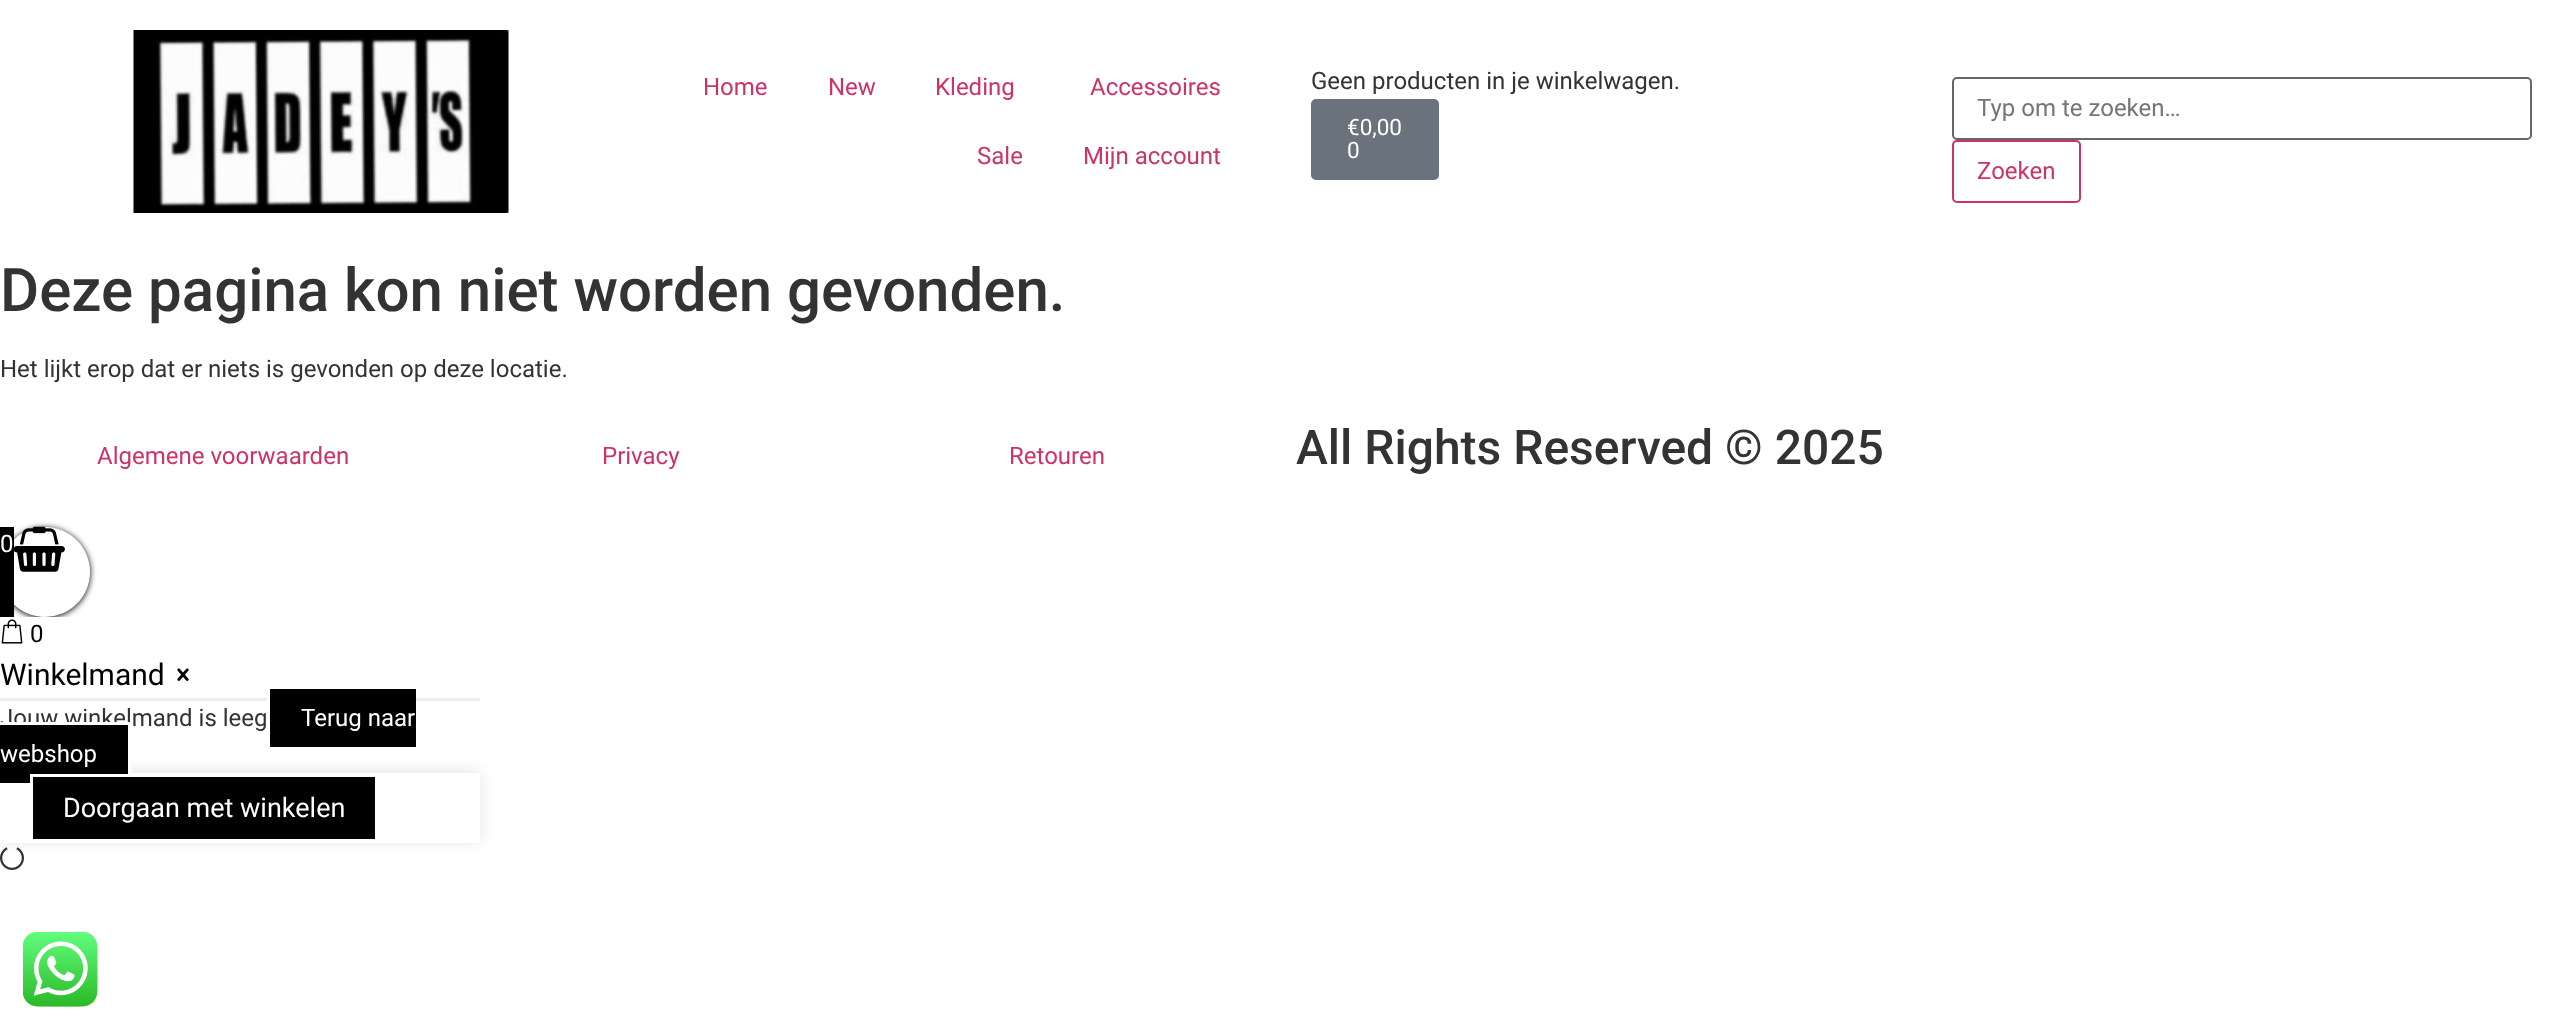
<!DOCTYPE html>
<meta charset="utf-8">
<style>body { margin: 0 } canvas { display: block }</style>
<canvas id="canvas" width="2562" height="1029"></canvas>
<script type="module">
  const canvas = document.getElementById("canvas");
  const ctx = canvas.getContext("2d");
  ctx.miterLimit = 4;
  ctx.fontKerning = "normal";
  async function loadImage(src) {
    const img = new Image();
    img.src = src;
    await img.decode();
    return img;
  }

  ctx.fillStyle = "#ffffff";
  ctx.fillRect(0, 0, 2562, 1029);
  ctx.drawImage(await loadImage("img1.png"), 133, 30, 376, 183);
  ctx.font = "24px Roboto";
  ctx.fillStyle = "#cc3366";
  ctx.fillText("Home", 703, 95);
  ctx.fillText("New", 828, 95);
  ctx.fillText("Kleding", 935, 95);
  ctx.fillText("Accessoires", 1090, 95);
  ctx.fillText("Sale", 977, 164);
  ctx.fillText("Mijn account", 1083, 164);
  ctx.fillStyle = "#333333";
  ctx.fillText("Geen producten in je winkelwagen.", 1311, 89);
  ctx.fillStyle = "#69727d";
  ctx.beginPath();
  ctx.roundRect(1311, 99, 128, 81, 5);
  ctx.fill();
  ctx.font = "22.5px Roboto";
  ctx.fillStyle = "#ffffff";
  ctx.fillText("€0,00", 1347, 135);
  ctx.fillText("0", 1347, 158);
  ctx.beginPath();
  ctx.roundRect(1953, 78, 578, 61, 4);
  ctx.strokeStyle = "#666666";
  ctx.lineWidth = 2;
  ctx.stroke();
  ctx.font = "24px Roboto";
  ctx.fillStyle = "#757575";
  ctx.fillText("Typ om te zoeken…", 1977, 116);
  ctx.beginPath();
  ctx.roundRect(1953, 141, 127, 61, 4);
  ctx.strokeStyle = "#cc3366";
  ctx.stroke();
  ctx.fillStyle = "#cc3366";
  ctx.fillText("Zoeken", 1977, 179);
  ctx.font = "500 60px Roboto";
  ctx.fillStyle = "#333333";
  ctx.fillText("Deze pagina kon niet worden gevonden.", 0, 311);
  ctx.font = "24px Roboto";
  ctx.fillText("Het lijkt erop dat er niets is gevonden op deze locatie.", 0, 377);
  ctx.fillStyle = "#cc3366";
  ctx.fillText("Algemene voorwaarden", 97, 464);
  ctx.fillText("Privacy", 602, 464);
  ctx.fillText("Retouren", 1009, 464);
  ctx.font = "500 48px Roboto";
  ctx.fillStyle = "#333333";
  ctx.fillText("All Rights Reserved © 2025", 1296, 464);
  ctx.fillStyle = "#000000";
  ctx.filter = "blur(3px)";
  ctx.beginPath();
  ctx.roundRect(0, 528, 90, 90, 45);
  ctx.fill();
  ctx.filter = "none";
  ctx.fillStyle = "#ffffff";
  ctx.beginPath();
  ctx.arc(45, 572, 45, 0, Math.PI * 2);
  ctx.fill();
  ctx.fillStyle = "#000000";
  ctx.fillRect(0, 527, 14, 90);
  ctx.font = "24px Roboto";
  ctx.fillStyle = "#ffffff";
  ctx.fillText("0", 0, 552);
  ctx.drawImage(await loadImage("img2.png"), 14, 526, 51, 46);
  ctx.fillRect(18, 617, 54, 8);
  ctx.fillStyle = "#eeeeee";
  ctx.fillRect(0, 698, 480, 3);
  ctx.drawImage(await loadImage("img3.png"), 1, 619, 22, 25);
  ctx.fillStyle = "#000000";
  ctx.fillText("0", 30, 642);
  ctx.font = "30px Roboto";
  ctx.fillText("Winkelmand", 0, 685);
  ctx.drawImage(await loadImage("img4.png"), 177, 668, 12, 13);
  ctx.font = "24px Roboto";
  ctx.fillStyle = "#333333";
  ctx.fillText("Jouw winkelmand is leeg", 0, 726);
  ctx.fillStyle = "#000000";
  ctx.fillRect(270, 689, 146, 58);
  ctx.fillStyle = "#ffffff";
  ctx.fillText("Terug naar", 301, 726);
  ctx.fillRect(267, 698, 3, 3);
  ctx.save();
  ctx.beginPath();
  ctx.moveTo(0, 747);
  ctx.lineTo(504, 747);
  ctx.lineTo(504, 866);
  ctx.lineTo(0, 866);
  ctx.closePath();
  ctx.moveTo(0, 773);
  ctx.lineTo(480, 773);
  ctx.lineTo(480, 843);
  ctx.lineTo(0, 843);
  ctx.closePath();
  ctx.clip("evenodd");
  ctx.fillStyle = "rgba(0, 0, 0, 0.1)";
  ctx.filter = "blur(7.5px)";
  ctx.beginPath();
  ctx.rect(0, 771, 480, 71);
  ctx.fill();
  ctx.filter = "none";
  ctx.restore();
  ctx.fillStyle = "#000000";
  ctx.fillRect(0, 725, 128, 58);
  ctx.fillStyle = "#ffffff";
  ctx.fillText("webshop", 0, 762);
  ctx.fillRect(0, 722, 131, 3);
  ctx.fillRect(128, 722, 3, 52);
  ctx.fillStyle = "#000000";
  ctx.beginPath();
  ctx.rect(31.5, 775.5, 345, 65);
  ctx.fill();
  ctx.strokeStyle = "#ffffff";
  ctx.lineWidth = 3;
  ctx.stroke();
  ctx.font = "27px Roboto";
  ctx.fillStyle = "#ffffff";
  ctx.fillText("Doorgaan met winkelen", 63, 817);
  ctx.drawImage(await loadImage("img5.png"), 0, 847, 24, 23);
  ctx.drawImage(await loadImage("img6.png"), 23, 932, 75, 75);
</script>
